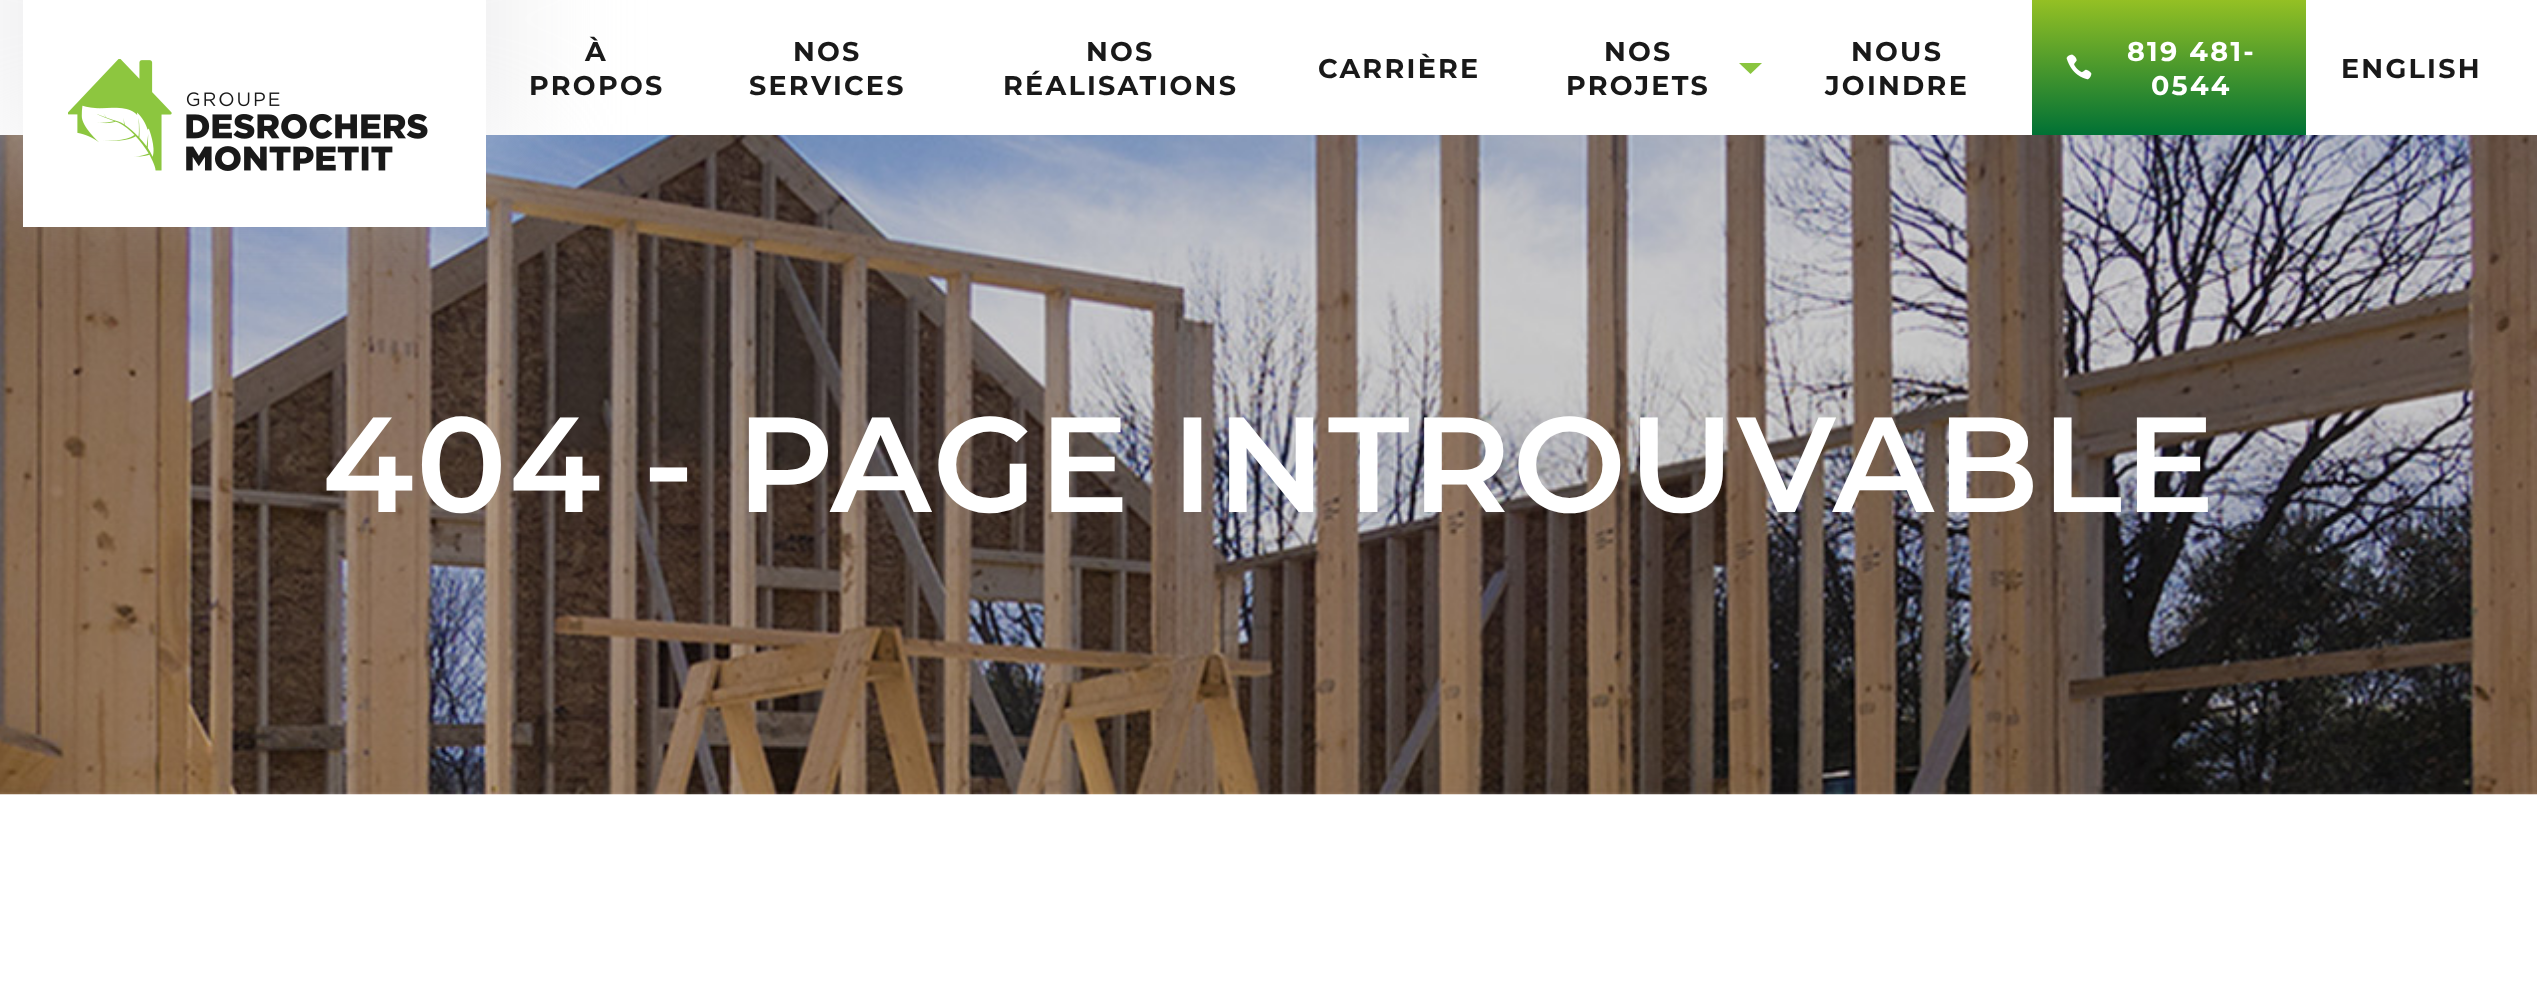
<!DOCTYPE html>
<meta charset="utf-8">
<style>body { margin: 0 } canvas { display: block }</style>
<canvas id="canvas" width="2537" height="997"></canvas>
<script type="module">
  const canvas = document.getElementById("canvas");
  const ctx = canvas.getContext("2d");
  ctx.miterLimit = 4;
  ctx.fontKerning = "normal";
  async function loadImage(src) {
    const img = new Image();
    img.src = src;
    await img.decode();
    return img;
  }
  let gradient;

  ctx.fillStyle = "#ffffff";
  ctx.fillRect(0, 0, 2537, 997);
  ctx.drawImage(await loadImage("img3.png"), 0, 135, 2537, 660);
  ctx.fillStyle = "rgba(229, 229, 230, 0.68)";
  ctx.filter = "blur(59.5px)";
  ctx.beginPath();
  ctx.rect(0, -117, 509, 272);
  ctx.fill();
  ctx.filter = "none";
  ctx.fillStyle = "#ffffff";
  ctx.fillRect(23, 0, 463, 227);
  ctx.drawImage(await loadImage("img1.png"), 68, 59, 360, 112);
  ctx.letterSpacing = "2.25px";
  ctx.font = "bold 27px Montserrat";
  ctx.fillStyle = "#191919";
  ctx.fillText("À", 585, 61);
  ctx.fillText("PROPOS", 529, 95);
  ctx.fillText("NOS", 793, 61);
  ctx.fillText("SERVICES", 749, 95);
  ctx.fillText("NOS", 1086, 61);
  ctx.fillText("RÉALISATIONS", 1003, 95);
  ctx.fillText("CARRIÈRE", 1318, 78);
  ctx.fillText("NOS", 1604, 61);
  ctx.fillText("PROJETS", 1566, 95);
  ctx.fillStyle = "#8ac53f";
  ctx.beginPath();
  ctx.moveTo(1739, 63);
  ctx.lineTo(1762, 63);
  ctx.lineTo(1750.5, 74);
  ctx.closePath();
  ctx.fill();
  ctx.fillStyle = "#191919";
  ctx.fillText("NOUS", 1851, 61);
  ctx.fillText("JOINDRE", 1825, 95);
  gradient = ctx.createLinearGradient(2169, 135, 2169, 0);
  gradient.addColorStop(0, "#007135");
  gradient.addColorStop(1, "#94c024");
  ctx.fillStyle = gradient;
  ctx.fillRect(2032, 0, 274, 135);
  ctx.drawImage(await loadImage("img2.png"), 2066, 54, 26, 26);
  ctx.fillStyle = "#ffffff";
  ctx.fillText("819 481-", 2127, 61);
  ctx.fillText("0544", 2151, 95);
  ctx.fillStyle = "#191919";
  ctx.fillText("ENGLISH", 2341, 78);
  ctx.font = "600 135px Montserrat";
  ctx.fillStyle = "#ffffff";
  ctx.fillText("404 - PAGE INTROUVABLE", 322, 512);
</script>
